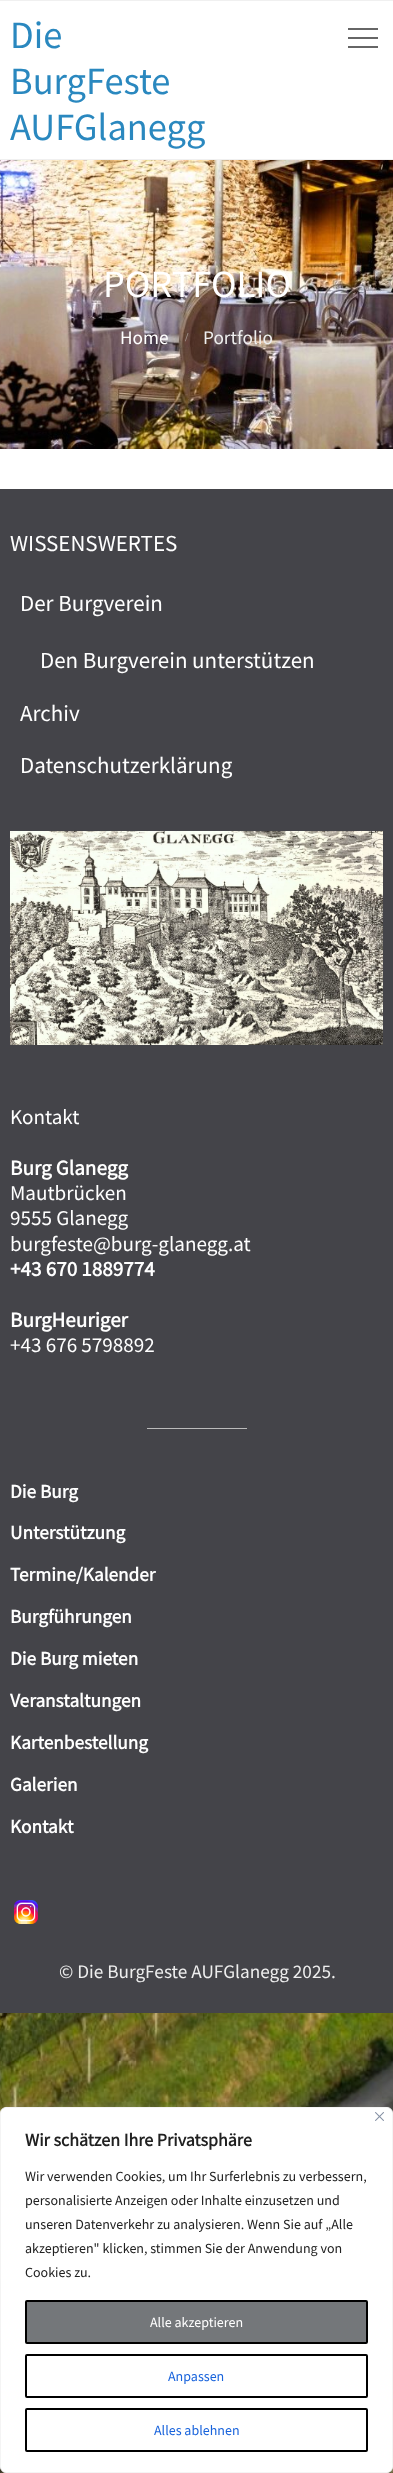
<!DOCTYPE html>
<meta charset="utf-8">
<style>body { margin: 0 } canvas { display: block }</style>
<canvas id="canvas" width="393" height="2473"></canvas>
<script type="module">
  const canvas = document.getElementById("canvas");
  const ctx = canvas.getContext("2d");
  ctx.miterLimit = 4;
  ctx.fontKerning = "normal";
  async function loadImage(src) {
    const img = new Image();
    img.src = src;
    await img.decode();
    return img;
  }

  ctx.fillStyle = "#ffffff";
  ctx.fillRect(0, 0, 393, 2473);
  ctx.drawImage(await loadImage("img1.png"), 0, 2013, 393, 460);
  ctx.fillStyle = "#f0f0f0";
  ctx.fillRect(0, 0, 393, 1);
  ctx.fillRect(0, 159, 393, 1);
  ctx.font = "38.5px Source Sans Pro";
  ctx.fillStyle = "#2a88bf";
  ctx.fillText("Die", 10, 48);
  ctx.fillText("BurgFeste", 10, 94);
  ctx.fillText("AUFGlanegg", 10, 140);
  ctx.fillStyle = "#666666";
  ctx.fillRect(348, 28, 30, 2);
  ctx.fillRect(348, 46, 30, 2);
  ctx.fillRect(348, 37, 30, 2);
  ctx.drawImage(await loadImage("img2.png"), 0, 160, 393, 289);
  ctx.fillStyle = "#ffffff";
  ctx.fillText("PORTFOLIO", 103, 297);
  ctx.font = "19.25px Source Sans Pro";
  ctx.fillText("Home", 120, 344);
  ctx.font = "bold 12px Liberation Serif";
  ctx.fillStyle = "#a0918a";
  ctx.fillText("/", 185, 341);
  ctx.font = "19.25px Source Sans Pro";
  ctx.fillStyle = "#eeeeee";
  ctx.fillText("Portfolio", 203, 344);
  ctx.fillStyle = "#444449";
  ctx.fillRect(0, 489, 393, 1524);
  ctx.font = "23px Source Sans Pro";
  ctx.fillStyle = "#ffffff";
  ctx.fillText("WISSENSWERTES", 10, 551);
  ctx.fillText("Der Burgverein", 20, 611);
  ctx.fillText("Den Burgverein unterstützen", 40, 668);
  ctx.fillText("Archiv", 20, 721);
  ctx.fillText("Datenschutzerklärung", 20, 773);
  ctx.drawImage(await loadImage("img3.png"), 10, 831, 373, 214);
  ctx.font = "21.1px Source Sans Pro";
  ctx.fillText("Kontakt", 10, 1124);
  ctx.font = "bold 21.1px Source Sans Pro";
  ctx.fillText("Burg Glanegg", 10, 1175);
  ctx.font = "21.1px Source Sans Pro";
  ctx.fillText("Mautbrücken", 10, 1200);
  ctx.fillText("9555 Glanegg", 10, 1225);
  ctx.fillText("burgfeste@burg-glanegg.at", 10, 1251);
  ctx.font = "bold 21.1px Source Sans Pro";
  ctx.fillText("+43 670 1889774", 10, 1276);
  ctx.fillText("BurgHeuriger", 10, 1327);
  ctx.font = "21.1px Source Sans Pro";
  ctx.fillText("+43 676 5798892", 10, 1352);
  ctx.fillStyle = "#bbbbbb";
  ctx.fillRect(147, 1428, 100, 1);
  ctx.font = "bold 19.25px Source Sans Pro";
  ctx.fillStyle = "#ffffff";
  ctx.fillText("Die Burg", 10, 1498);
  ctx.fillText("Unterstützung", 10, 1539);
  ctx.fillText("Termine/Kalender", 10, 1581);
  ctx.fillText("Burgführungen", 10, 1623);
  ctx.fillText("Die Burg mieten", 10, 1665);
  ctx.fillText("Veranstaltungen", 10, 1707);
  ctx.fillText("Kartenbestellung", 10, 1749);
  ctx.fillText("Galerien", 10, 1791);
  ctx.fillText("Kontakt", 10, 1833);
  ctx.drawImage(await loadImage("img4.png"), 14, 1900, 24, 24);
  ctx.font = "19.25px Source Sans Pro";
  ctx.fillStyle = "#eeeeee";
  ctx.fillText("© Die BurgFeste AUFGlanegg 2025.", 59, 1978);
  ctx.fillStyle = "rgba(172, 171, 171, 0.3)";
  ctx.filter = "blur(5px)";
  ctx.beginPath();
  ctx.roundRect(0, 2106, 393, 366, 6);
  ctx.fill();
  ctx.filter = "none";
  ctx.fillStyle = "#ffffff";
  ctx.beginPath();
  ctx.roundRect(0.5, 2107.5, 392, 365, 5.5);
  ctx.fill();
  ctx.strokeStyle = "#f4f4f4";
  ctx.stroke();
  ctx.drawImage(await loadImage("img5.png"), 375, 2112, 9, 9);
  ctx.font = "bold 18px Source Sans Pro";
  ctx.fillStyle = "#212121";
  ctx.fillText("Wir schätzen Ihre Privatsphäre", 25, 2146);
  ctx.font = "14px Source Sans Pro";
  ctx.fillText("Wir verwenden Cookies, um Ihr Surferlebnis zu verbessern,", 25, 2181);
  ctx.fillText("personalisierte Anzeigen oder Inhalte einzusetzen und", 25, 2205);
  ctx.fillText("unseren Datenverkehr zu analysieren. Wenn Sie auf „Alle", 25, 2229);
  ctx.fillText("akzeptieren\" klicken, stimmen Sie der Anwendung von", 25, 2253);
  ctx.fillText("Cookies zu.", 25, 2277);
  ctx.fillStyle = "#74777a";
  ctx.beginPath();
  ctx.roundRect(26, 2301, 341, 42, 1);
  ctx.fill();
  ctx.strokeStyle = "#000000";
  ctx.lineWidth = 2;
  ctx.stroke();
  ctx.fillStyle = "#ffffff";
  ctx.fillText("Alle akzeptieren", 150, 2327);
  ctx.beginPath();
  ctx.roundRect(26, 2355, 341, 42, 1);
  ctx.stroke();
  ctx.fillStyle = "#1863dc";
  ctx.fillText("Anpassen", 168, 2381);
  ctx.beginPath();
  ctx.roundRect(26, 2409, 341, 42, 1);
  ctx.stroke();
  ctx.fillText("Alles ablehnen", 154, 2435);
</script>
